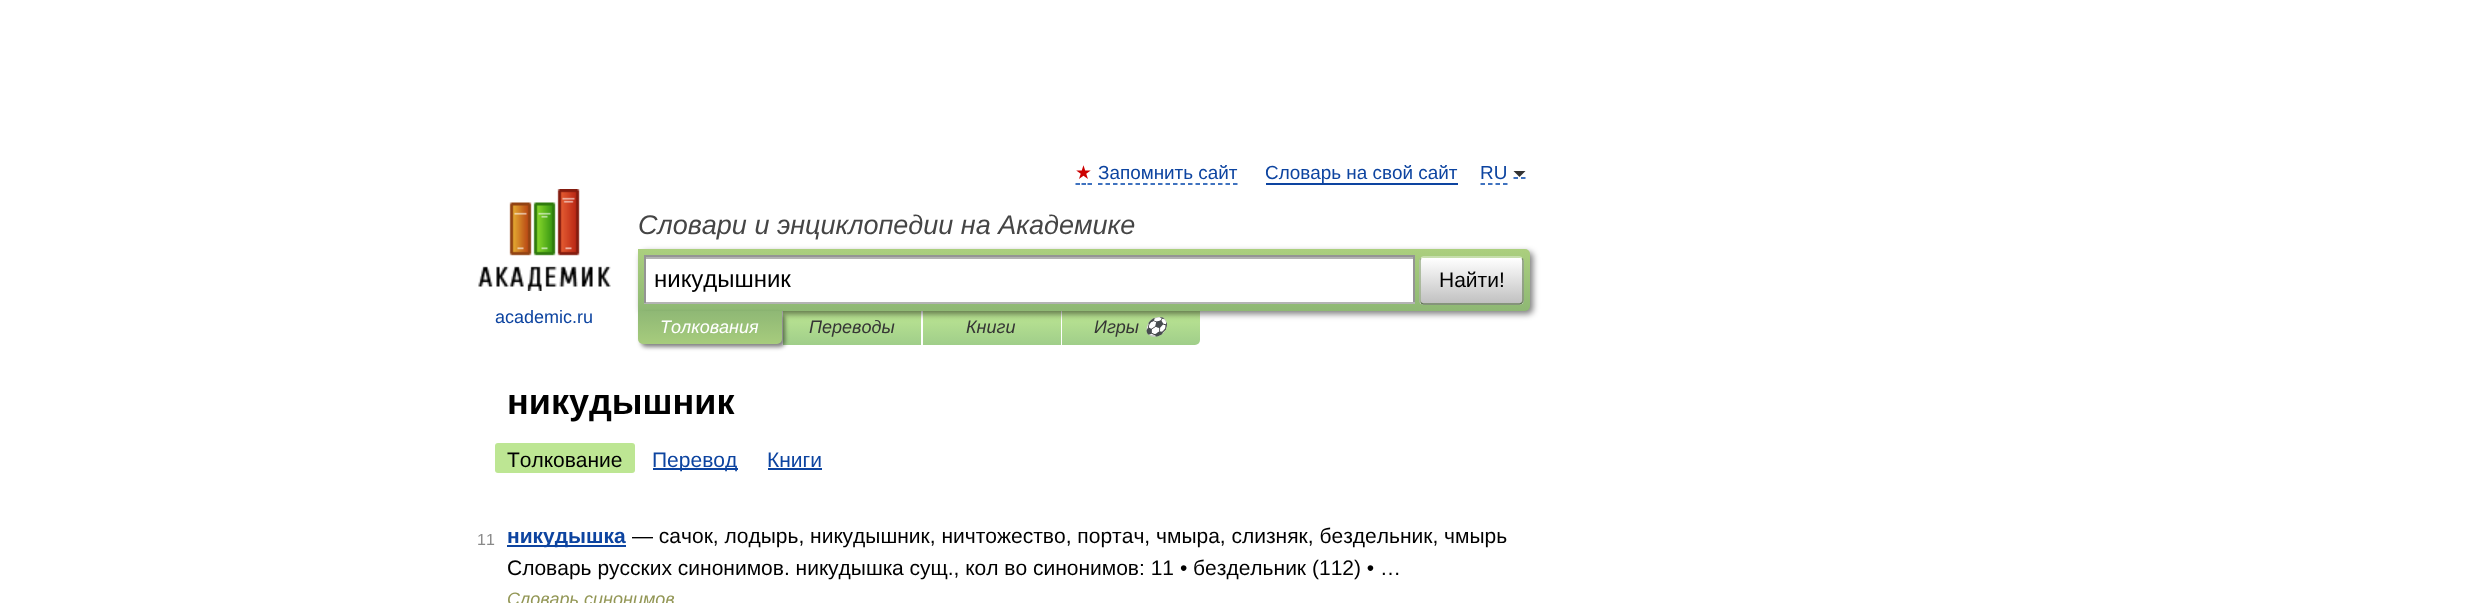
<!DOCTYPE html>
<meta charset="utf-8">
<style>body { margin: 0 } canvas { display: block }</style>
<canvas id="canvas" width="2475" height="603"></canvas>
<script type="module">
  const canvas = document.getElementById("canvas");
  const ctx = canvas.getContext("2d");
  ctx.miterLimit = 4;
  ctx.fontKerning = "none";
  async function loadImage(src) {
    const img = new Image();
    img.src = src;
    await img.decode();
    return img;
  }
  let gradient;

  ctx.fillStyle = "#ffffff";
  ctx.fillRect(0, 0, 2475, 603);
  ctx.font = "18.9px DejaVu Sans";
  ctx.fillStyle = "#cc0000";
  ctx.fillText("★", 1075, 179);
  ctx.beginPath();
  ctx.moveTo(1075.5, 184);
  ctx.lineTo(1080, 184);
  ctx.moveTo(1081.5, 184);
  ctx.lineTo(1086, 184);
  ctx.moveTo(1087.5, 184);
  ctx.lineTo(1092, 184);
  ctx.strokeStyle = "#0044aa";
  ctx.lineWidth = 1.5;
  ctx.stroke();
  ctx.font = "18.9px Liberation Sans";
  ctx.fillStyle = "#0d44a0";
  ctx.fillText("Запомнить сайт", 1098, 179);
  ctx.beginPath();
  ctx.moveTo(1098, 184);
  ctx.lineTo(1237.5, 184);
  ctx.setLineDash([4.5, 3]);
  ctx.stroke();
  ctx.fillText("Словарь на свой сайт", 1265, 179);
  ctx.fillRect(1266, 183, 192, 2);
  ctx.beginPath();
  ctx.moveTo(1480.5, 184);
  ctx.lineTo(1507.5, 184);
  ctx.stroke();
  ctx.beginPath();
  ctx.moveTo(1513.5, 178);
  ctx.lineTo(1518, 178);
  ctx.moveTo(1521, 178);
  ctx.lineTo(1525.5, 178);
  ctx.setLineDash([]);
  ctx.stroke();
  ctx.fillText("RU", 1480, 179);
  ctx.fillStyle = "#333333";
  ctx.beginPath();
  ctx.moveTo(1513.5, 171);
  ctx.lineTo(1525.5, 171);
  ctx.lineTo(1519.5, 177);
  ctx.closePath();
  ctx.fill();
  ctx.font = "italic 27px Liberation Sans";
  ctx.fillStyle = "#454545";
  ctx.fillText("Словари и энциклопедии на Академике", 638, 234);
  gradient = ctx.createLinearGradient(852, 311, 852, 345);
  gradient.addColorStop(0, "#bde693");
  gradient.addColorStop(1, "#a0ce8a");
  ctx.fillStyle = gradient;
  ctx.fillRect(783, 311, 138, 34);
  gradient = ctx.createLinearGradient(992, 311, 992, 345);
  gradient.addColorStop(0, "#bde693");
  gradient.addColorStop(1, "#a0ce8a");
  ctx.fillStyle = gradient;
  ctx.fillRect(923, 311, 138, 34);
  gradient = ctx.createLinearGradient(1131, 311, 1131, 345);
  gradient.addColorStop(0, "#bde693");
  gradient.addColorStop(1, "#a0ce8a");
  ctx.fillStyle = gradient;
  ctx.beginPath();
  ctx.roundRect(1062, 311, 138, 34, [0, 0, 5, 0]);
  ctx.fill();
  ctx.fillStyle = "rgba(0, 0, 0, 0.5)";
  ctx.filter = "blur(3px)";
  ctx.beginPath();
  ctx.roundRect(641, 252, 892, 62, 5);
  ctx.fill();
  ctx.filter = "none";
  gradient = ctx.createLinearGradient(1084, 249, 1084, 311);
  gradient.addColorStop(0, "#abcf7e");
  gradient.addColorStop(1, "#8eb874");
  ctx.fillStyle = gradient;
  ctx.beginPath();
  ctx.roundRect(638, 249, 892, 62, [0, 5, 5, 0]);
  ctx.fill();
  ctx.fillStyle = "#ffffff";
  ctx.fillRect(646, 259, 767, 43);
  ctx.fillStyle = "#b3b3b3";
  ctx.fillRect(645, 257, 768, 2);
  ctx.fillStyle = "#949494";
  ctx.fillRect(644, 255, 771, 2);
  ctx.fillRect(1413, 255, 2, 48);
  ctx.fillStyle = "#b4b4b4";
  ctx.fillRect(644, 302, 771, 2);
  ctx.fillStyle = "#949494";
  ctx.fillRect(644, 255, 2, 48);
  ctx.font = "24px Liberation Sans";
  ctx.fillStyle = "#000000";
  ctx.fillText("никудышник", 654, 287);
  ctx.save();
  ctx.beginPath();
  ctx.roundRect(1419, 257, 105, 48, 5);
  ctx.clip();
  gradient = ctx.createLinearGradient(1472, 258, 1472, 303);
  gradient.addColorStop(0, "#ffffff");
  gradient.addColorStop(1, "#c1c1c1");
  ctx.fillStyle = gradient;
  ctx.fillRect(1419, 258, 105, 45);
  gradient = ctx.createLinearGradient(1472, 303, 1472, 348);
  gradient.addColorStop(0, "#ffffff");
  gradient.addColorStop(1, "#c1c1c1");
  ctx.fillStyle = gradient;
  ctx.fillRect(1419, 303, 105, 2);
  ctx.restore();
  ctx.beginPath();
  ctx.moveTo(1421, 258.5);
  ctx.bezierCurveTo(1421.5, 257.5, 1422.5, 257, 1423.5, 257);
  ctx.lineTo(1519.5, 257);
  ctx.bezierCurveTo(1520.5, 257, 1521.5, 257.5, 1522, 258.5);
  ctx.strokeStyle = "#d1e4bc";
  ctx.stroke();
  ctx.beginPath();
  ctx.moveTo(1522, 258.5);
  ctx.bezierCurveTo(1523, 259, 1523, 260, 1523, 261);
  ctx.lineTo(1523, 300);
  ctx.bezierCurveTo(1523, 301, 1523, 302, 1522, 302.5);
  ctx.strokeStyle = "#7a8e69";
  ctx.stroke();
  ctx.beginPath();
  ctx.moveTo(1522, 302.5);
  ctx.bezierCurveTo(1521.5, 303.5, 1520.5, 304, 1519.5, 304);
  ctx.lineTo(1423.5, 304);
  ctx.bezierCurveTo(1422.5, 304, 1421.5, 303.5, 1421, 302.5);
  ctx.strokeStyle = "#5d7250";
  ctx.stroke();
  ctx.beginPath();
  ctx.moveTo(1421, 302.5);
  ctx.bezierCurveTo(1420, 302, 1420, 301, 1420, 300);
  ctx.lineTo(1420, 261);
  ctx.bezierCurveTo(1420, 260, 1420, 259, 1421, 258.5);
  ctx.strokeStyle = "#9aae89";
  ctx.stroke();
  ctx.font = "21px Liberation Sans";
  ctx.fillText("Найти!", 1439, 287);
  ctx.drawImage(await loadImage("img1.png"), 478, 189, 133, 102);
  ctx.font = "18px Liberation Sans";
  ctx.fillStyle = "#0d44a0";
  ctx.fillText("academic.ru", 495, 323);
  ctx.fillStyle = "rgba(0, 0, 0, 0.5)";
  ctx.filter = "blur(2px)";
  ctx.beginPath();
  ctx.roundRect(641, 314, 144, 33, 5);
  ctx.fill();
  ctx.filter = "none";
  gradient = ctx.createLinearGradient(710, 311, 710, 344);
  gradient.addColorStop(0, "#8fb875");
  gradient.addColorStop(1, "#a7cc7d");
  ctx.fillStyle = gradient;
  ctx.beginPath();
  ctx.roundRect(638, 311, 144, 33, [0, 0, 5, 5]);
  ctx.fill();
  ctx.font = "italic 18px Liberation Sans";
  ctx.fillStyle = "#ffffff";
  ctx.fillText("Толкования", 660, 333);
  ctx.fillStyle = "#353535";
  ctx.fillText("Переводы", 809, 333);
  ctx.fillText("Книги", 966, 333);
  ctx.fillText("Игры", 1094, 333);
  ctx.font = "italic 18px Noto Color Emoji";
  ctx.fillText("⚽", 1144, 333);
  ctx.font = "bold 36px Liberation Sans";
  ctx.fillStyle = "#000000";
  ctx.fillText("никудышник", 507, 414);
  ctx.fillStyle = "#bde693";
  ctx.beginPath();
  ctx.roundRect(495, 443, 140, 30, 3);
  ctx.fill();
  ctx.font = "21px Liberation Sans";
  ctx.fillStyle = "#000000";
  ctx.fillText("Толкование", 507, 467);
  ctx.fillStyle = "#0d44a0";
  ctx.fillRect(653, 468, 85, 2);
  ctx.fillText("Перевод", 652, 467);
  ctx.fillText("Книги", 767, 467);
  ctx.fillRect(768, 468, 54, 2);
  ctx.font = "16px Liberation Sans";
  ctx.fillStyle = "#898989";
  ctx.fillText("11", 477, 545);
  ctx.fillStyle = "#0d44a0";
  ctx.fillRect(507, 545, 119, 2);
  ctx.font = "bold 21px Liberation Sans";
  ctx.fillText("никудышка", 507, 543);
  ctx.font = "21px Liberation Sans";
  ctx.fillStyle = "#000000";
  ctx.fillText("— сачок, лодырь, никудышник, ничтожество, портач, чмыра, слизняк, бездельник,", 632, 543);
  ctx.fillText("чмырь", 1444, 543);
  ctx.fillText("Словарь русских синонимов. никудышка сущ., кол во синонимов: 11 • бездельник", 507, 575);
  ctx.fillText("(112) • …", 1312, 575);
  ctx.font = "italic 18px Liberation Sans";
  ctx.fillStyle = "#939756";
  ctx.fillText("Словарь синонимов", 507, 605);
</script>
